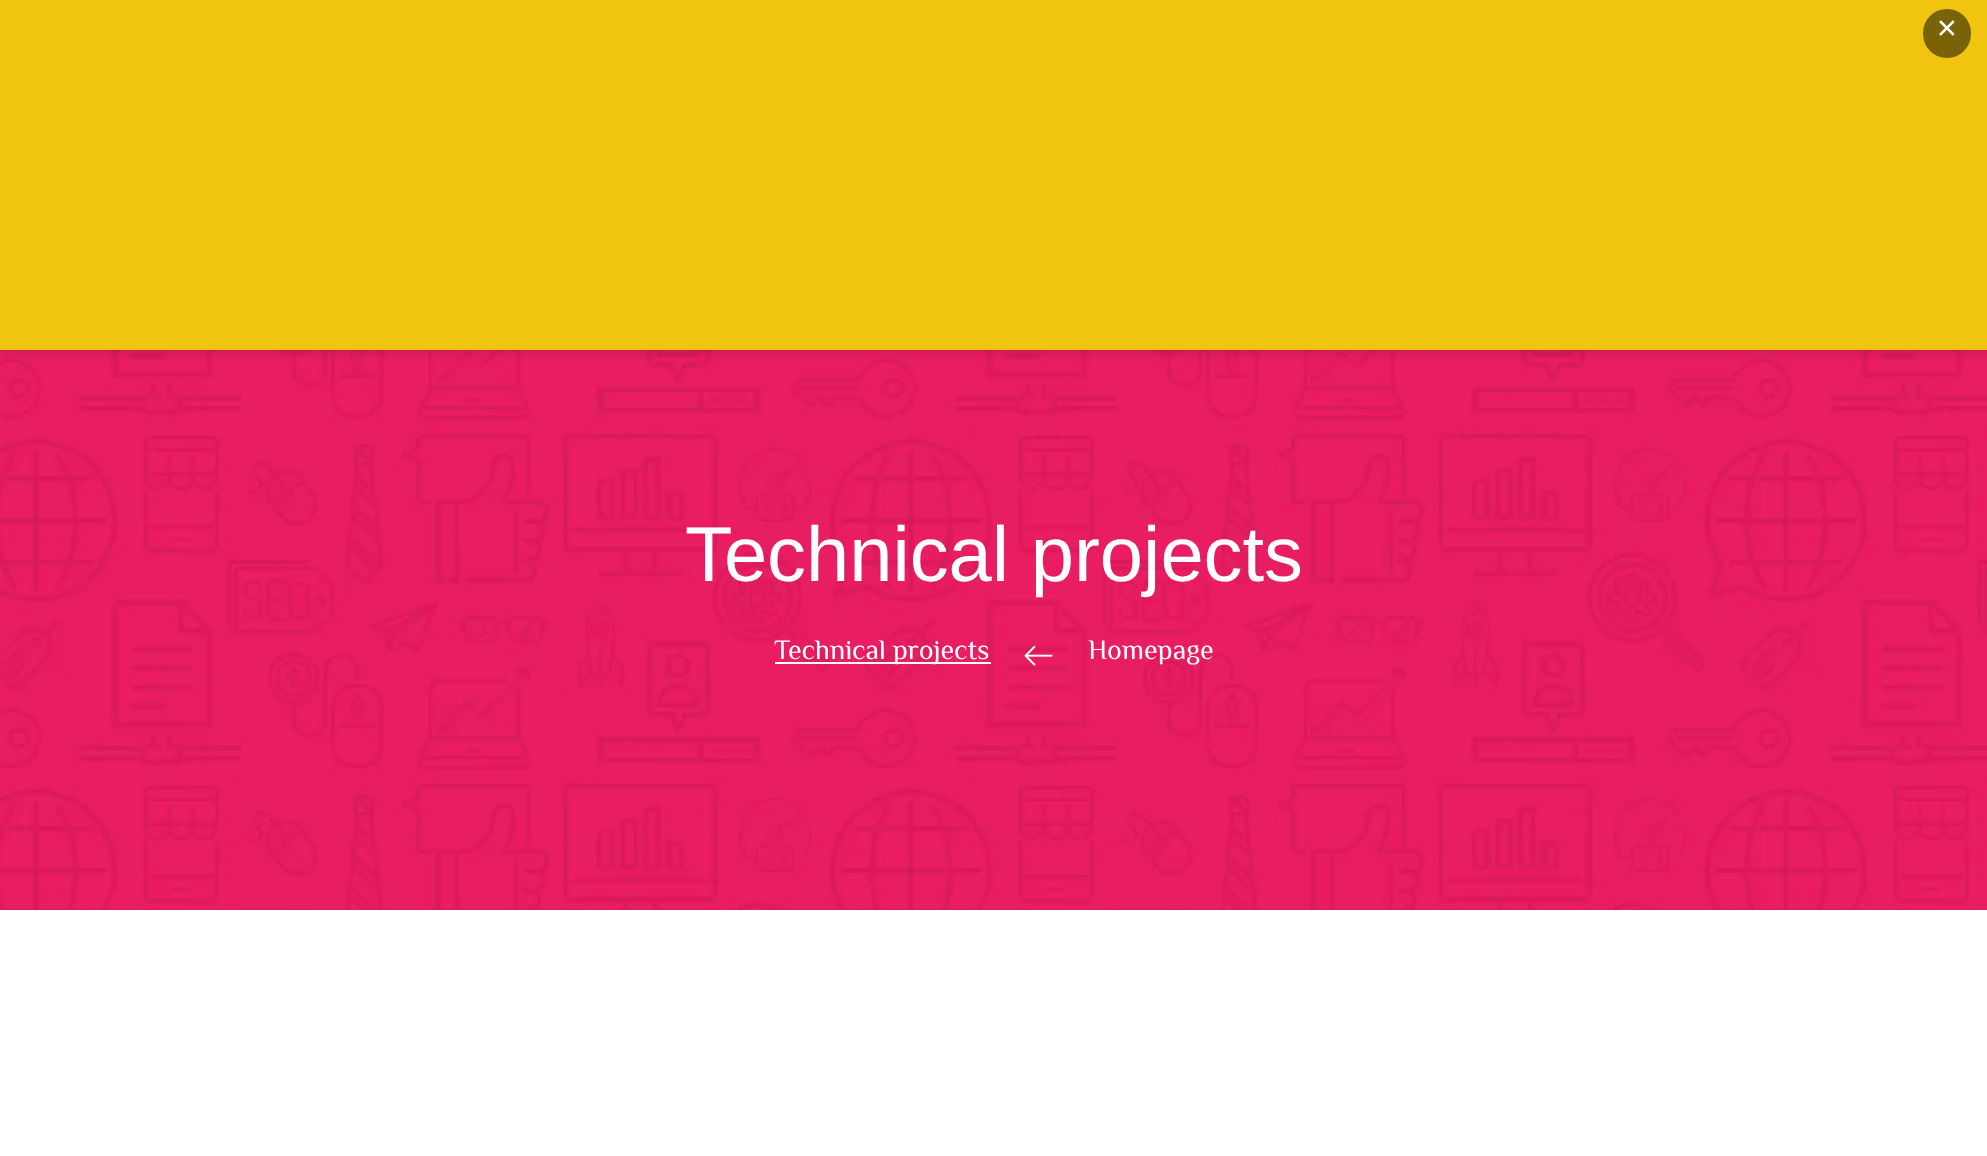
<!DOCTYPE html>
<meta charset="utf-8">
<style>body { margin: 0 } canvas { display: block }</style>
<canvas id="canvas" width="1987" height="1156"></canvas>
<script type="module">
  const canvas = document.getElementById("canvas");
  const ctx = canvas.getContext("2d");
  ctx.miterLimit = 4;
  ctx.fontKerning = "normal";
  async function loadImage(src) {
    const img = new Image();
    img.src = src;
    await img.decode();
    return img;
  }

  ctx.fillStyle = "#ffffff";
  ctx.fillRect(0, 0, 1987, 1156);
  ctx.drawImage(await loadImage("img1.png"), 0, 350, 1987, 560);
  ctx.fillStyle = "rgba(0, 0, 0, 0.1)";
  ctx.filter = "blur(3.5px)";
  ctx.beginPath();
  ctx.rect(0, 4, 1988, 350);
  ctx.fill();
  ctx.filter = "none";
  ctx.fillStyle = "#f1c40f";
  ctx.fillRect(0, 0, 1987, 350);
  ctx.fillStyle = "#796208";
  ctx.beginPath();
  ctx.roundRect(1923, 9, 48, 49, 24);
  ctx.fill();
  ctx.font = "42px El Messiri";
  ctx.fillStyle = "#ffffff";
  ctx.fillText("×", 1937, 42);
  ctx.font = "77.75px Liberation Sans";
  ctx.fillText("Technical projects", 685, 581);
  ctx.fillRect(775, 662, 216, 2);
  ctx.font = "28px El Messiri";
  ctx.fillText("Technical projects", 774, 659);
  ctx.drawImage(await loadImage("img2.png"), 1024, 645, 29, 21);
  ctx.fillText("Homepage", 1088, 659);
</script>
